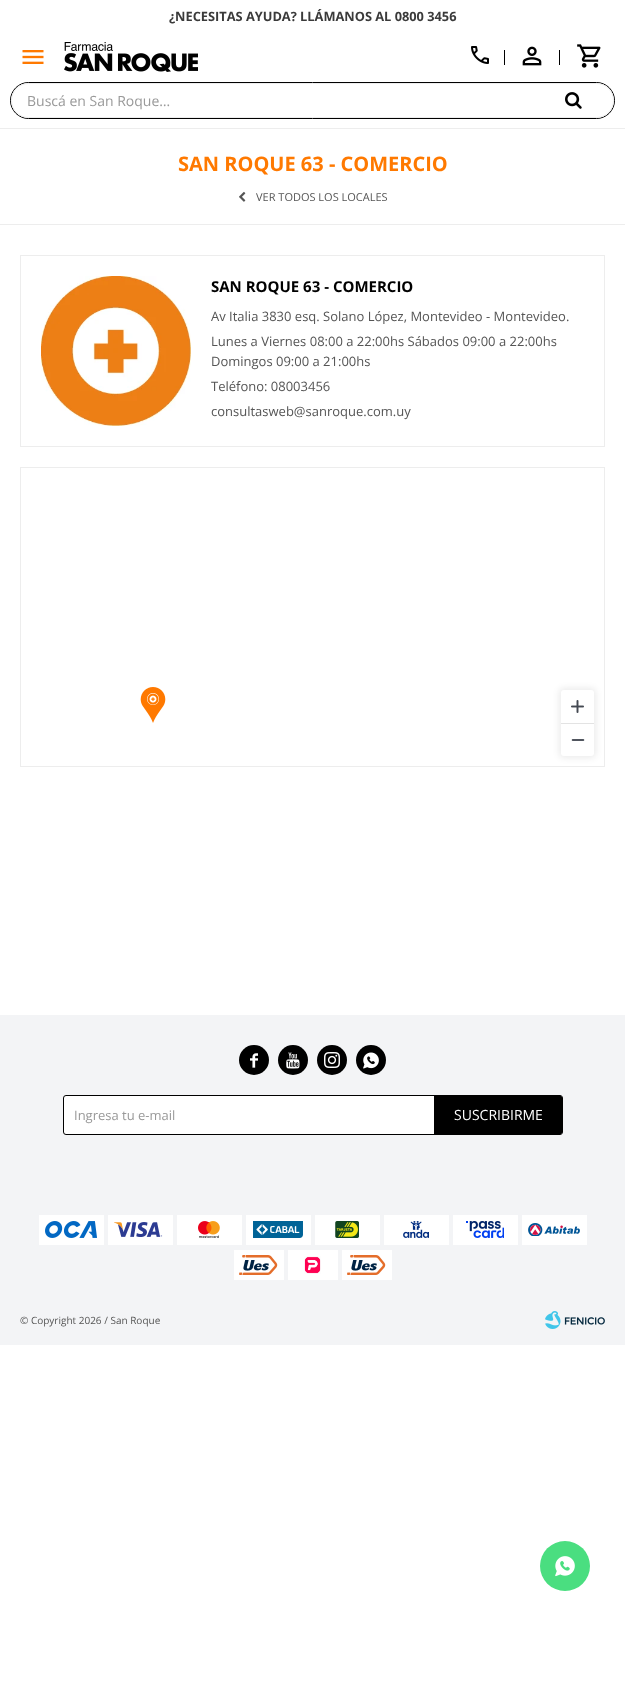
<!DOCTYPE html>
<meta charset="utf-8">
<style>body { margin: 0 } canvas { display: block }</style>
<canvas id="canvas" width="625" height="1691"></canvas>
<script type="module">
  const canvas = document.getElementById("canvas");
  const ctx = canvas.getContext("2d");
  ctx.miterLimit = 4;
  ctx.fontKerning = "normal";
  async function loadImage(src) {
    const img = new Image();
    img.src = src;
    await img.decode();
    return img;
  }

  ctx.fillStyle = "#ffffff";
  ctx.fillRect(0, 0, 625, 1691);
  ctx.font = "bold 12.8px Open Sans";
  ctx.fillStyle = "#3a3a3a";
  ctx.fillText("¿NECESITAS AYUDA? LLÁMANOS AL 0800 3456", 169, 21);
  ctx.drawImage(await loadImage("img1.png"), 22, 50, 22, 14);
  ctx.drawImage(await loadImage("img2.png"), 64, 42, 134, 30);
  ctx.drawImage(await loadImage("img3.png"), 471, 46, 18, 18);
  ctx.fillStyle = "#000000";
  ctx.fillRect(504, 50, 1, 15);
  ctx.drawImage(await loadImage("img4.png"), 522, 46, 20, 20);
  ctx.fillRect(559, 50, 1, 15);
  ctx.drawImage(await loadImage("img5.png"), 577, 44, 24, 24);
  ctx.beginPath();
  ctx.roundRect(10.5, 82.5, 604, 36, 18);
  ctx.strokeStyle = "#000000";
  ctx.stroke();
  ctx.fillStyle = "#ffffff";
  ctx.beginPath();
  ctx.roundRect(11.5, 83.5, 602, 34, 17);
  ctx.fill();
  ctx.strokeStyle = "#ededed";
  ctx.stroke();
  ctx.font = "14px Open Sans";
  ctx.fillStyle = "#999999";
  ctx.fillText("Buscá en San Roque…", 27, 106);
  ctx.drawImage(await loadImage("img6.png"), 565, 92, 17, 17);
  ctx.fillStyle = "#ededed";
  ctx.fillRect(0, 128, 625, 1);
  ctx.font = "bold 20px Open Sans";
  ctx.fillStyle = "#ff7900";
  ctx.fillText("SAN ROQUE 63 - COMERCIO", 178, 171);
  ctx.drawImage(await loadImage("img7.png"), 239, 191, 7, 11);
  ctx.font = "11px Open Sans";
  ctx.fillStyle = "#555555";
  ctx.fillText("VER TODOS LOS LOCALES", 256, 201);
  ctx.fillStyle = "#ededed";
  ctx.fillRect(0, 224, 625, 1);
  ctx.strokeRect(20.5, 255.5, 584, 191);
  ctx.drawImage(await loadImage("img8.png"), 41, 276, 150, 150);
  ctx.font = "bold 15px Open Sans";
  ctx.fillStyle = "#000000";
  ctx.fillText("SAN ROQUE 63 - COMERCIO", 211, 292);
  ctx.font = "13px Open Sans";
  ctx.fillStyle = "#555555";
  ctx.fillText("Av Italia 3830 esq. Solano López, Montevideo - Montevideo.", 211, 321);
  ctx.fillText("Lunes a Viernes 08:00 a 22:00hs Sábados 09:00 a 22:00hs", 211, 346);
  ctx.fillText("Domingos 09:00 a 21:00hs", 211, 366);
  ctx.fillText("Teléfono: 08003456", 211, 391);
  ctx.fillText("consultasweb@sanroque.com.uy", 211, 416);
  ctx.strokeRect(20.5, 467.5, 584, 299);
  ctx.drawImage(await loadImage("img9.png"), 140, 687, 26, 36);
  ctx.fillStyle = "rgba(0, 0, 0, 0.08)";
  ctx.filter = "blur(3px)";
  ctx.beginPath();
  ctx.roundRect(559, 688, 37, 70, 5);
  ctx.fill();
  ctx.filter = "none";
  ctx.fillStyle = "#ffffff";
  ctx.beginPath();
  ctx.roundRect(561, 690, 33, 66, 3);
  ctx.fill();
  ctx.drawImage(await loadImage("img10.png"), 571, 700, 13, 13);
  ctx.fillStyle = "#e3e3e3";
  ctx.fillRect(561, 723, 33, 1);
  ctx.drawImage(await loadImage("img11.png"), 571, 739, 14, 2);
  ctx.fillStyle = "#f3f4f6";
  ctx.fillRect(0, 1015, 625, 330);
  ctx.fillStyle = "#000000";
  ctx.beginPath();
  ctx.arc(254, 1060, 15, 0, Math.PI * 2);
  ctx.fill();
  ctx.drawImage(await loadImage("img12.png"), 250, 1053, 8, 15);
  ctx.beginPath();
  ctx.arc(293, 1060, 15, 0, Math.PI * 2);
  ctx.fill();
  ctx.drawImage(await loadImage("img13.png"), 286, 1052, 14, 17);
  ctx.beginPath();
  ctx.arc(332, 1060, 15, 0, Math.PI * 2);
  ctx.fill();
  ctx.drawImage(await loadImage("img14.png"), 324, 1052, 16, 16);
  ctx.beginPath();
  ctx.arc(371, 1060, 15, 0, Math.PI * 2);
  ctx.fill();
  ctx.drawImage(await loadImage("img15.png"), 363, 1052, 16, 17);
  ctx.fillStyle = "#ffffff";
  ctx.beginPath();
  ctx.roundRect(63.5, 1095.5, 499, 39, 2.5);
  ctx.fill();
  ctx.strokeStyle = "#000000";
  ctx.stroke();
  ctx.fillStyle = "#999999";
  ctx.fillText("Ingresa tu e-mail", 74, 1120);
  ctx.fillStyle = "#000000";
  ctx.beginPath();
  ctx.roundRect(434, 1095, 129, 40, [0, 5, 5, 0]);
  ctx.fill();
  ctx.font = "14px Open Sans";
  ctx.fillStyle = "#ffffff";
  ctx.fillText("SUSCRIBIRME", 454, 1120);
  ctx.fillRect(39, 1215, 65, 30);
  ctx.drawImage(await loadImage("img16.png"), 45, 1221, 52, 17);
  ctx.fillRect(108, 1215, 65, 30);
  ctx.drawImage(await loadImage("img17.png"), 114, 1222, 49, 15);
  ctx.fillRect(177, 1215, 65, 30);
  ctx.drawImage(await loadImage("img18.png"), 198, 1221, 22, 17);
  ctx.fillRect(246, 1215, 65, 30);
  ctx.drawImage(await loadImage("img19.png"), 253, 1221, 50, 17);
  ctx.fillRect(315, 1215, 65, 30);
  ctx.drawImage(await loadImage("img20.png"), 335, 1221, 24, 17);
  ctx.fillRect(384, 1215, 65, 30);
  ctx.drawImage(await loadImage("img21.png"), 403, 1221, 26, 17);
  ctx.fillRect(453, 1215, 65, 30);
  ctx.drawImage(await loadImage("img22.png"), 466, 1221, 38, 17);
  ctx.fillRect(522, 1215, 65, 30);
  ctx.drawImage(await loadImage("img23.png"), 528, 1223, 52, 13);
  ctx.fillRect(234, 1250, 50, 30);
  ctx.drawImage(await loadImage("img24.png"), 239, 1255, 39, 20);
  ctx.fillRect(288, 1250, 50, 30);
  ctx.drawImage(await loadImage("img25.png"), 304, 1256, 17, 18);
  ctx.fillRect(342, 1250, 50, 30);
  ctx.drawImage(await loadImage("img24.png"), 347, 1255, 39, 20);
  ctx.font = "10px Open Sans";
  ctx.fillStyle = "#555555";
  ctx.fillText("© Copyright 2026 / San Roque", 20, 1324);
  ctx.drawImage(await loadImage("img26.png"), 545, 1311, 60, 18);
  ctx.fillStyle = "#4ade80";
  ctx.beginPath();
  ctx.arc(565, 1566, 25, 0, Math.PI * 2);
  ctx.fill();
  ctx.drawImage(await loadImage("img27.png"), 555, 1556, 20, 21);
</script>
